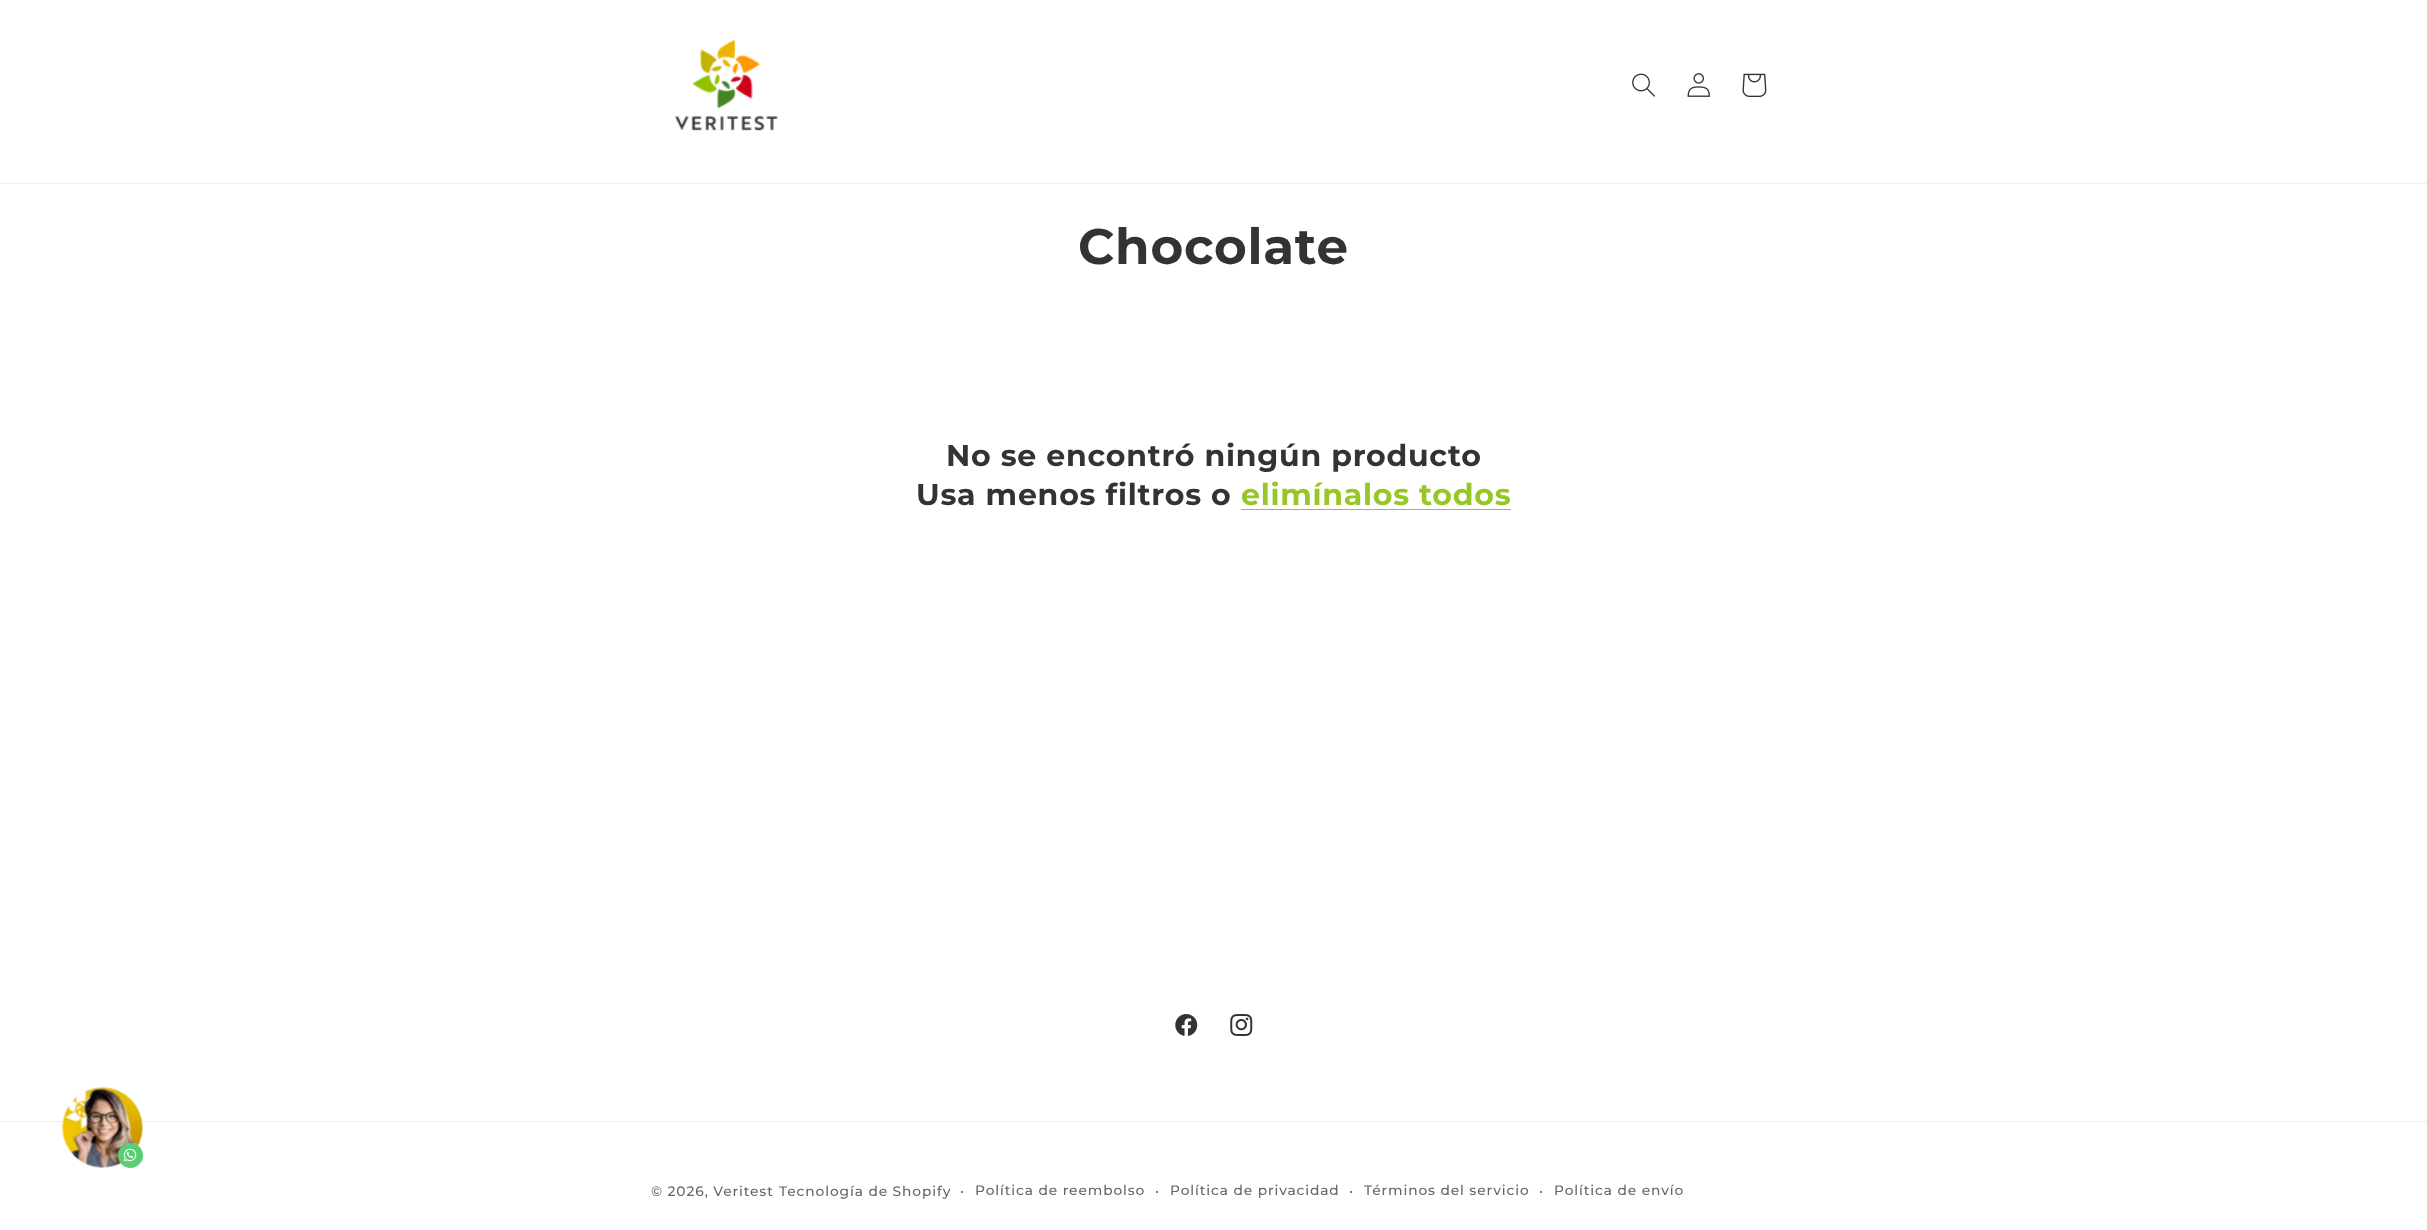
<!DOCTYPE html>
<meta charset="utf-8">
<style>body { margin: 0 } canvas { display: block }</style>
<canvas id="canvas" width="2427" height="1230"></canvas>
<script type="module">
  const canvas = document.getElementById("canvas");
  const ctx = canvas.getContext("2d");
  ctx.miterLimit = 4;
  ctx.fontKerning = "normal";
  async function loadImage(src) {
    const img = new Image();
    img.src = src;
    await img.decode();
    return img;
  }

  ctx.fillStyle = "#ffffff";
  ctx.fillRect(0, 0, 2427, 1230);
  ctx.fillStyle = "#efefef";
  ctx.fillRect(0, 183, 2427, 1);
  ctx.drawImage(await loadImage("img1.png"), 675, 39, 103, 92);
  ctx.drawImage(await loadImage("img2.png"), 1632, 73, 23, 24);
  ctx.drawImage(await loadImage("img3.png"), 1687, 73, 23, 24);
  ctx.drawImage(await loadImage("img4.png"), 1742, 73, 25, 24);
  ctx.letterSpacing = "0.75px";
  ctx.font = "bold 50px Montserrat";
  ctx.fillStyle = "#333333";
  ctx.fillText("Chocolate", 1078, 264);
  ctx.font = "bold 30px Montserrat";
  ctx.fillText("No se encontró ningún producto", 946, 466);
  ctx.fillText("Usa menos filtros o", 916, 505);
  ctx.fillStyle = "#96c726";
  ctx.fillText("elimínalos todos", 1241, 505);
  ctx.fillRect(1241, 509, 270, 1);
  ctx.fillStyle = "#efefef";
  ctx.fillRect(0, 1121, 2427, 1);
  ctx.drawImage(await loadImage("img5.png"), 62, 1087, 81, 81);
  ctx.fillStyle = "#59ce72";
  ctx.beginPath();
  ctx.arc(130.5, 1155.5, 12.5, 0, Math.PI * 2);
  ctx.fill();
  ctx.drawImage(await loadImage("img6.png"), 123, 1148, 14, 14);
  ctx.drawImage(await loadImage("img7.png"), 1175, 1014, 23, 22);
  ctx.drawImage(await loadImage("img8.png"), 1230, 1014, 23, 22);
  ctx.letterSpacing = "0.9px";
  ctx.font = "500 13.75px Montserrat";
  ctx.fillStyle = "#666666";
  ctx.fillText("© 2026, Veritest", 651, 1196);
  ctx.fillText("Tecnología de Shopify", 779, 1196);
  ctx.font = "500 15px Montserrat";
  ctx.fillText("·", 960, 1196);
  ctx.font = "500 13.75px Montserrat";
  ctx.fillText("Política de reembolso", 975, 1195);
  ctx.font = "500 15px Montserrat";
  ctx.fillText("·", 1155, 1196);
  ctx.font = "500 13.75px Montserrat";
  ctx.fillText("Política de privacidad", 1170, 1195);
  ctx.font = "500 15px Montserrat";
  ctx.fillText("·", 1349, 1196);
  ctx.font = "500 13.75px Montserrat";
  ctx.fillText("Términos del servicio", 1364, 1195);
  ctx.font = "500 15px Montserrat";
  ctx.fillText("·", 1539, 1196);
  ctx.font = "500 13.75px Montserrat";
  ctx.fillText("Política de envío", 1554, 1195);
</script>
